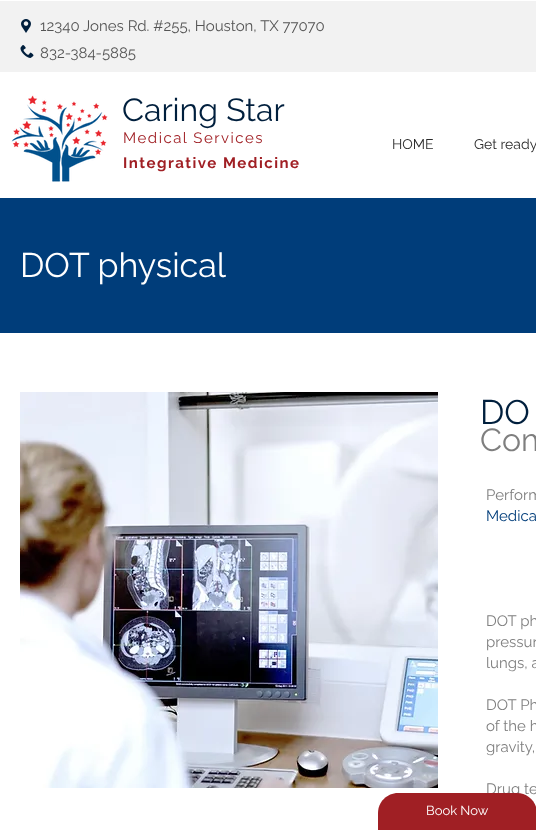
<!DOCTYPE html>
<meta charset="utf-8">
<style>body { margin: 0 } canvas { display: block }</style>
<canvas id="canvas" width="536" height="830"></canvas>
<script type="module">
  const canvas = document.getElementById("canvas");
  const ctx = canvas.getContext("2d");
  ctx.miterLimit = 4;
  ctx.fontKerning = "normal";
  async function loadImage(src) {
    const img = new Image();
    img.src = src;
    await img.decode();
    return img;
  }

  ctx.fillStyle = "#ffffff";
  ctx.fillRect(0, 0, 536, 830);
  ctx.fillStyle = "#f2f2f2";
  ctx.fillRect(0, 1, 536, 71);
  ctx.drawImage(await loadImage("img1.png"), 21, 19, 10, 14);
  ctx.font = "15px Raleway";
  ctx.fillStyle = "#555555";
  ctx.fillText("12340 Jones Rd. #255, Houston, TX 77070", 40, 31);
  ctx.drawImage(await loadImage("img2.png"), 20, 45, 14, 13);
  ctx.fillText("832-384-5885", 40, 58);
  ctx.drawImage(await loadImage("img3.png"), 11, 95, 97, 87);
  ctx.font = "32px Raleway";
  ctx.fillStyle = "#001f3d";
  ctx.fillText("Caring Star", 122, 121);
  ctx.letterSpacing = "1.5px";
  ctx.font = "15px Raleway";
  ctx.fillStyle = "#a01f24";
  ctx.fillText("Medical Services", 123, 143);
  ctx.letterSpacing = "0px";
  ctx.font = "14px Raleway";
  ctx.fillStyle = "#2a2a2a";
  ctx.fillText("HOME", 392, 149);
  ctx.fillText("Get ready", 474, 149);
  ctx.letterSpacing = "1.5px";
  ctx.font = "bold 15px Raleway";
  ctx.fillStyle = "#a01f24";
  ctx.fillText("Integrative Medicine", 123, 168);
  ctx.fillStyle = "#003d7a";
  ctx.fillRect(0, 198, 536, 135);
  ctx.letterSpacing = "0px";
  ctx.font = "34px Raleway";
  ctx.fillStyle = "#ffffff";
  ctx.fillText("DOT physical", 20, 277);
  ctx.drawImage(await loadImage("img4.png"), 20, 392, 418, 396);
  ctx.fillStyle = "#001f3d";
  ctx.fillText("DO", 480, 424);
  ctx.font = "32px Raleway";
  ctx.fillStyle = "#7f7f7f";
  ctx.fillText("Com", 480, 451);
  ctx.font = "15px Raleway";
  ctx.fillText("Perform", 486, 500);
  ctx.fillStyle = "#003d7a";
  ctx.fillText("Medica", 486, 521);
  ctx.fillStyle = "#7f7f7f";
  ctx.fillText("DOT ph", 486, 626);
  ctx.fillText("pressur", 486, 647);
  ctx.fillText("lungs, a", 486, 668);
  ctx.fillText("DOT Ph", 486, 710);
  ctx.fillText("of the h", 486, 731);
  ctx.fillText("gravity,", 486, 752);
  ctx.fillText("Drug te", 486, 794);
  ctx.fillStyle = "#a01f24";
  ctx.beginPath();
  ctx.moveTo(398, 793);
  ctx.lineTo(517, 793);
  ctx.bezierCurveTo(528, 793, 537, 802, 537, 813);
  ctx.lineTo(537, 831);
  ctx.lineTo(378, 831);
  ctx.lineTo(378, 813);
  ctx.bezierCurveTo(378, 802, 387, 793, 398, 793);
  ctx.closePath();
  ctx.fill();
  ctx.font = "13px Raleway";
  ctx.fillStyle = "#ffffff";
  ctx.fillText("Book Now", 426, 815);
</script>
